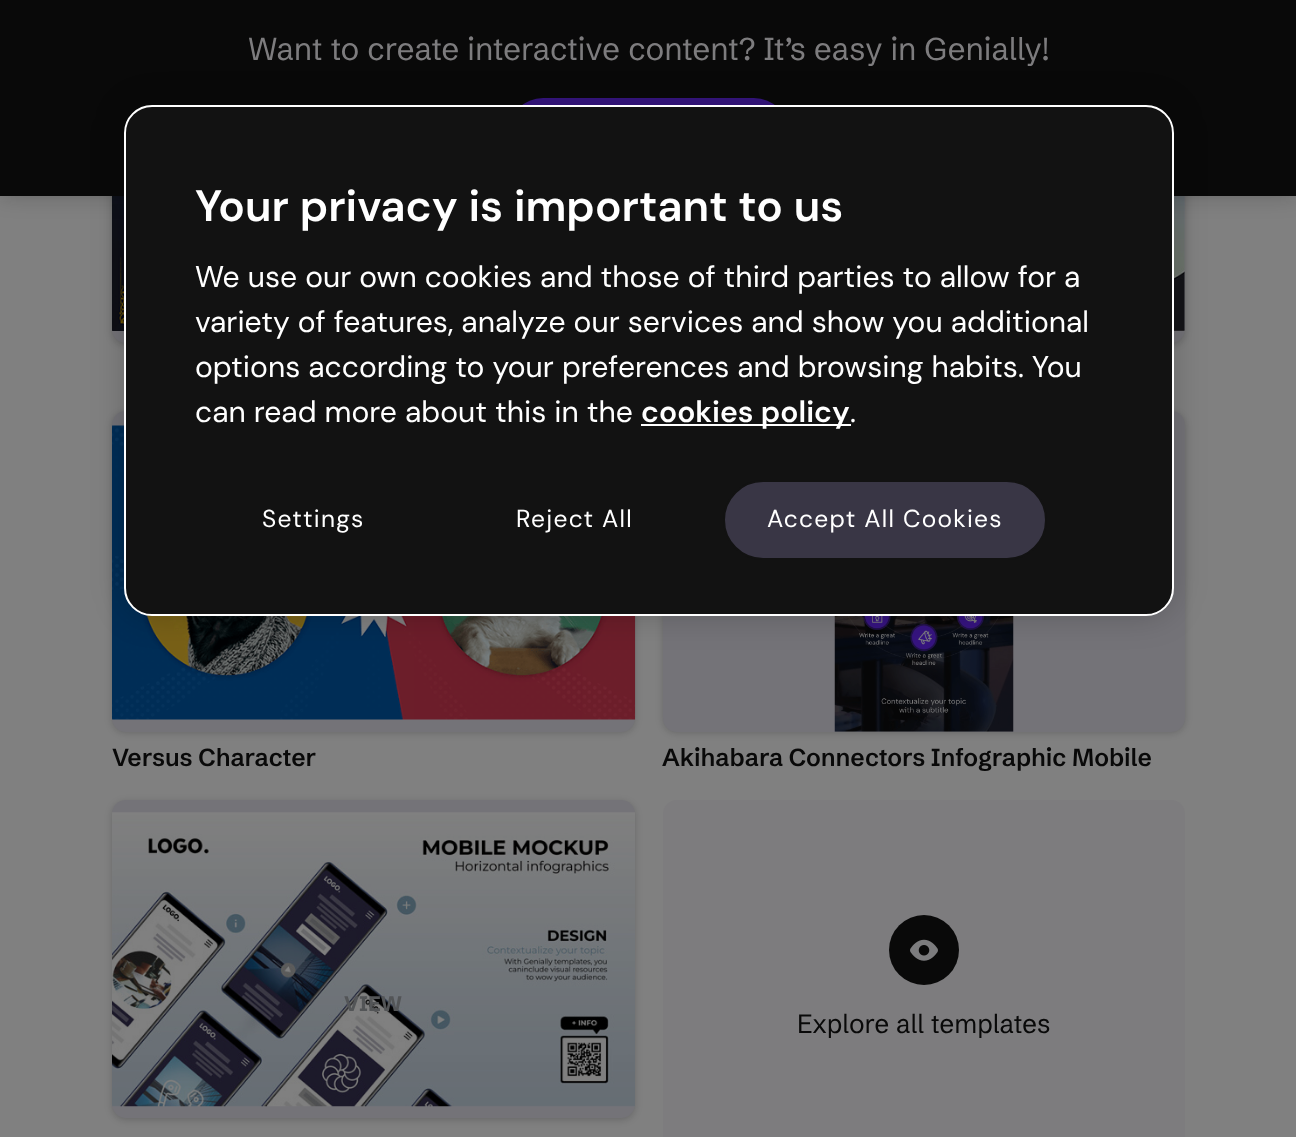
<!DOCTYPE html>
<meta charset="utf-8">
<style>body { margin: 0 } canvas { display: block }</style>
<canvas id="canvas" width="1296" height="1137"></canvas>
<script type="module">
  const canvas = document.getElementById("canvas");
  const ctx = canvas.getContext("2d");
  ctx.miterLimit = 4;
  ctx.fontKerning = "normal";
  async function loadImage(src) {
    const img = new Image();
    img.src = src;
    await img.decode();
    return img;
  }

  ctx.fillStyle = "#808080";
  ctx.fillRect(0, 0, 1296, 1137);
  ctx.fillStyle = "rgba(9, 9, 9, 0.2)";
  ctx.filter = "blur(3.5px)";
  ctx.beginPath();
  ctx.roundRect(112, 26, 523, 319, 14);
  ctx.fill();
  ctx.filter = "none";
  ctx.fillStyle = "#747378";
  ctx.beginPath();
  ctx.roundRect(112, 25, 523, 318, 14);
  ctx.fill();
  ctx.drawImage(await loadImage("img1.png"), 112, 196, 12, 135);
  ctx.fillStyle = "rgba(9, 9, 9, 0.2)";
  ctx.filter = "blur(3.5px)";
  ctx.beginPath();
  ctx.roundRect(663, 26, 522, 319, 14);
  ctx.fill();
  ctx.filter = "none";
  ctx.fillStyle = "#747378";
  ctx.beginPath();
  ctx.roundRect(663, 25, 522, 318, 14);
  ctx.fill();
  ctx.drawImage(await loadImage("img2.png"), 1174, 196, 11, 135);
  ctx.fillStyle = "rgba(9, 9, 9, 0.3)";
  ctx.filter = "blur(11.5px)";
  ctx.beginPath();
  ctx.rect(0, -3, 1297, 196);
  ctx.fill();
  ctx.filter = "none";
  ctx.fillStyle = "#090909";
  ctx.fillRect(0, 0, 1296, 196);
  ctx.font = "31.5px Schibsted Grotesk";
  ctx.fillStyle = "#7d7c7e";
  ctx.fillText("Want to create interactive content? It’s easy in Genially!", 248, 60);
  ctx.fillStyle = "#361580";
  ctx.beginPath();
  ctx.roundRect(508, 98, 281, 70, 35);
  ctx.fill();
  ctx.fillStyle = "rgba(9, 9, 9, 0.2)";
  ctx.filter = "blur(3.5px)";
  ctx.beginPath();
  ctx.roundRect(112, 413, 523, 320, 14);
  ctx.fill();
  ctx.filter = "none";
  ctx.fillStyle = "#747378";
  ctx.beginPath();
  ctx.roundRect(112, 411, 523, 321, 14);
  ctx.fill();
  ctx.drawImage(await loadImage("img3.png"), 112, 425, 524, 295);
  ctx.font = "600 24.5px Schibsted Grotesk";
  ctx.fillStyle = "#090909";
  ctx.fillText("Versus Character", 112, 766);
  ctx.fillStyle = "rgba(9, 9, 9, 0.2)";
  ctx.filter = "blur(3.5px)";
  ctx.beginPath();
  ctx.roundRect(663, 413, 522, 320, 14);
  ctx.fill();
  ctx.filter = "none";
  ctx.fillStyle = "#747378";
  ctx.beginPath();
  ctx.roundRect(663, 411, 522, 321, 14);
  ctx.fill();
  ctx.drawImage(await loadImage("img4.png"), 834, 616, 180, 116);
  ctx.fillStyle = "#090909";
  ctx.fillText("Akihabara Connectors Infographic Mobile", 662, 766);
  ctx.fillStyle = "rgba(9, 9, 9, 0.2)";
  ctx.filter = "blur(3.5px)";
  ctx.beginPath();
  ctx.roundRect(112, 802, 523, 318, 14);
  ctx.fill();
  ctx.filter = "none";
  ctx.fillStyle = "#747378";
  ctx.beginPath();
  ctx.roundRect(112, 800, 523, 318, 14);
  ctx.fill();
  ctx.drawImage(await loadImage("img5.png"), 112, 812, 523, 295);
  ctx.font = "bold 21px Schibsted Grotesk";
  ctx.fillStyle = "#535557";
  ctx.fillText("VIEW", 344, 1011);
  ctx.fillStyle = "#7d7c7e";
  ctx.beginPath();
  ctx.roundRect(663, 800, 522, 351, 14);
  ctx.fill();
  ctx.fillStyle = "#090909";
  ctx.beginPath();
  ctx.arc(924, 950, 35, 0, Math.PI * 2);
  ctx.fill();
  ctx.drawImage(await loadImage("img6.png"), 910, 939, 28, 22);
  ctx.font = "26.25px Schibsted Grotesk";
  ctx.fillText("Explore all templates", 797, 1033);
  ctx.fillStyle = "rgba(0, 0, 0, 0.2)";
  ctx.filter = "blur(16px)";
  ctx.beginPath();
  ctx.roundRect(124, 105, 1050, 511, 28);
  ctx.fill();
  ctx.filter = "none";
  ctx.fillStyle = "#121212";
  ctx.beginPath();
  ctx.roundRect(125, 106, 1048, 509, 27);
  ctx.fill();
  ctx.strokeStyle = "#ffffff";
  ctx.lineWidth = 2;
  ctx.stroke();
  ctx.font = "600 44.1px DM Sans";
  ctx.fillStyle = "#ffffff";
  ctx.fillText("Your privacy is important to us", 195, 221);
  ctx.font = "30.1px DM Sans";
  ctx.fillText("We use our own cookies and those of third parties to allow for a", 195, 287);
  ctx.fillText("variety of features, analyze our services and show you additional", 195, 332);
  ctx.fillText("options according to your preferences and browsing habits. You", 195, 377);
  ctx.fillText("can read more about this in the", 195, 422);
  ctx.fillRect(641, 424, 210, 2);
  ctx.font = "600 30.1px DM Sans";
  ctx.fillText("cookies policy", 641, 422);
  ctx.font = "30.1px DM Sans";
  ctx.fillText(".", 850, 422);
  ctx.letterSpacing = "1.25px";
  ctx.font = "24.5px DM Sans";
  ctx.fillText("Settings", 262, 527);
  ctx.fillText("Reject All", 516, 527);
  ctx.fillStyle = "#393645";
  ctx.beginPath();
  ctx.roundRect(724, 481, 322, 78, 39);
  ctx.fill();
  ctx.strokeStyle = "#121212";
  ctx.stroke();
  ctx.fillStyle = "#ffffff";
  ctx.fillText("Accept All Cookies", 767, 527);
</script>
